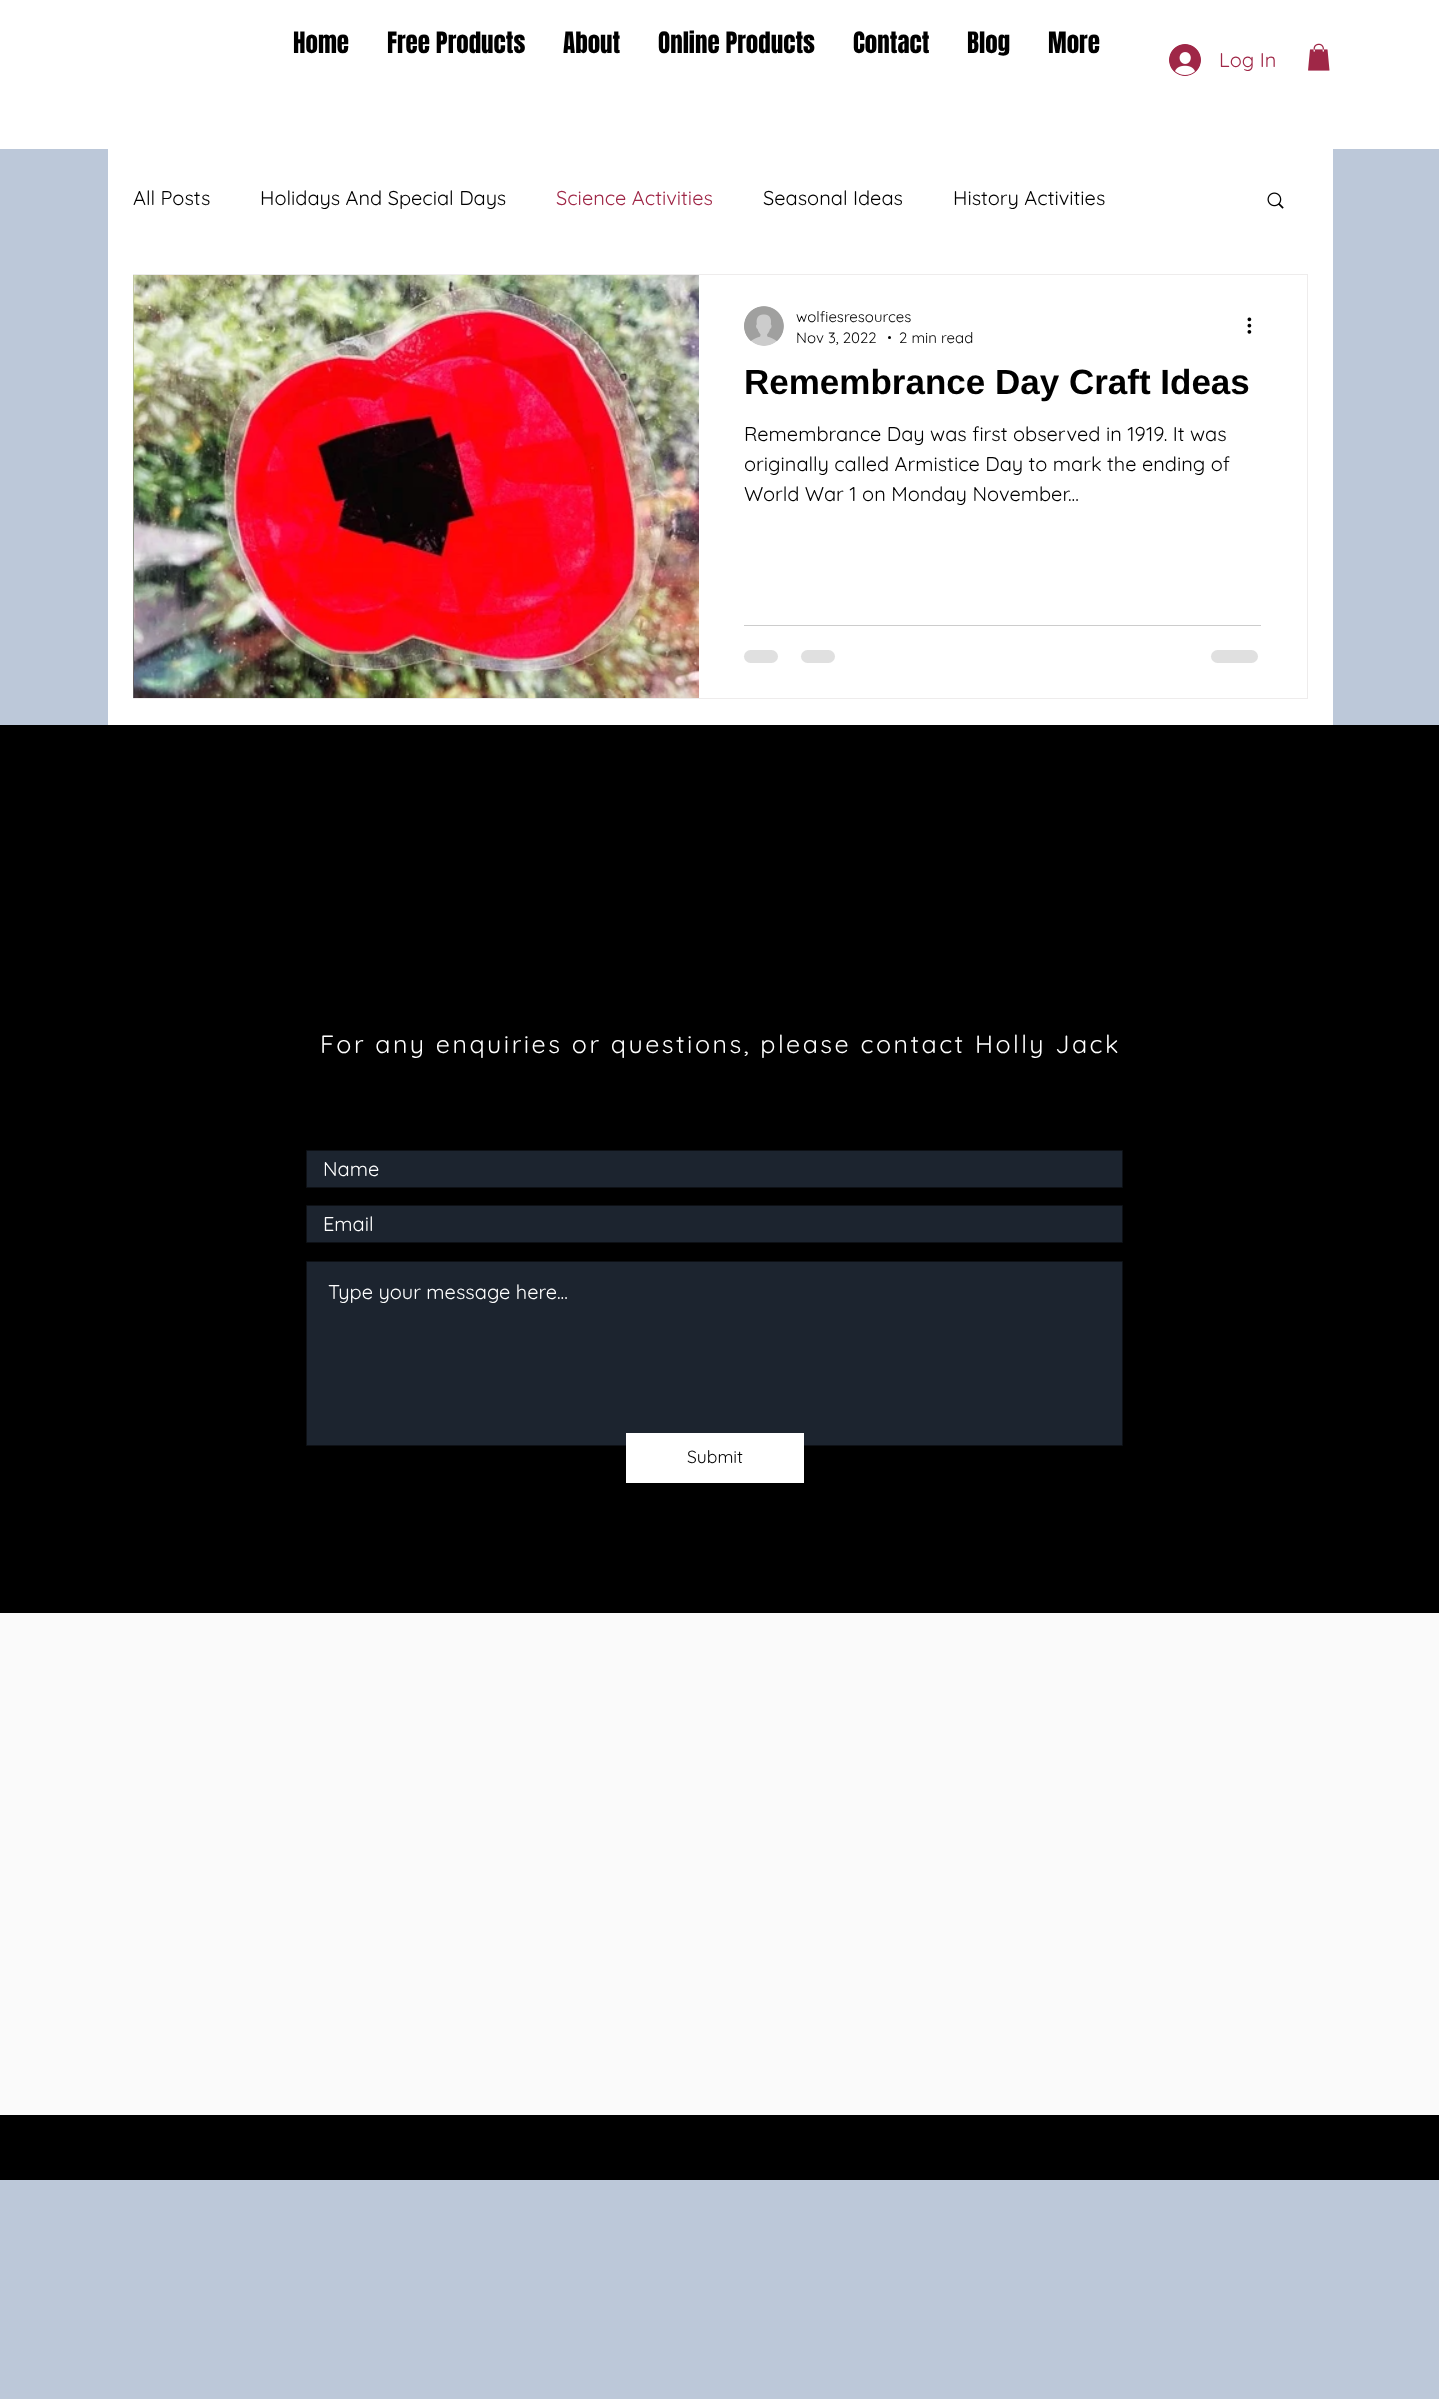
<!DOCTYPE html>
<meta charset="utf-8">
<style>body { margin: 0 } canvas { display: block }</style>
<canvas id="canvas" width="1439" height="2399"></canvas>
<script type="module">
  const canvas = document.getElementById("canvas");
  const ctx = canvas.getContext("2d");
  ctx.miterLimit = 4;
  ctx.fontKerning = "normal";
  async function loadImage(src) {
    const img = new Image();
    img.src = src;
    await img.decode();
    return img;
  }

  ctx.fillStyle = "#bcc8d9";
  ctx.fillRect(0, 0, 1439, 2399);
  ctx.fillStyle = "#ffffff";
  ctx.fillRect(0, 0, 1439, 149);
  ctx.font = "25px Anton";
  ctx.fillStyle = "#000000";
  ctx.fillText("Home", 293, 53);
  ctx.fillText("Free Products", 387, 53);
  ctx.fillText("About", 563, 53);
  ctx.fillText("Online Products", 658, 53);
  ctx.fillText("Contact", 853, 53);
  ctx.fillText("Blog", 967, 53);
  ctx.fillText("More", 1048, 53);
  ctx.drawImage(await loadImage("img1.png"), 1169, 44, 32, 32);
  ctx.font = "20px Quicksand";
  ctx.fillStyle = "#9f2747";
  ctx.fillText("Log In", 1219, 67);
  ctx.drawImage(await loadImage("img2.png"), 1308, 43, 22, 28);
  ctx.fillStyle = "#ffffff";
  ctx.fillRect(108, 149, 1225, 576);
  ctx.fillStyle = "#000000";
  ctx.fillText("All Posts", 133, 205);
  ctx.fillText("Holidays And Special Days", 260, 205);
  ctx.fillStyle = "#9f2747";
  ctx.fillText("Science Activities", 556, 205);
  ctx.fillStyle = "#000000";
  ctx.fillText("Seasonal Ideas", 763, 205);
  ctx.fillText("History Activities", 953, 205);
  ctx.drawImage(await loadImage("img3.png"), 1267, 192, 17, 17);
  ctx.strokeStyle = "#eeecec";
  ctx.strokeRect(133.5, 274.5, 1174, 424);
  ctx.drawImage(await loadImage("img4.png"), 133, 275, 1, 423);
  ctx.drawImage(await loadImage("img5.png"), 134, 275, 565, 423);
  ctx.drawImage(await loadImage("img6.png"), 744, 306, 40, 40);
  ctx.font = "15px Quicksand";
  ctx.fillText("wolfiesresources", 796, 322);
  ctx.fillText("Nov 3, 2022", 796, 343);
  ctx.beginPath();
  ctx.arc(889.5, 337.5, 1.5, 0, Math.PI * 2);
  ctx.fill();
  ctx.fillText("2 min read", 899, 343);
  ctx.drawImage(await loadImage("img7.png"), 1247, 317, 5, 17);
  ctx.font = "bold 35px Liberation Sans";
  ctx.fillText("Remembrance Day Craft Ideas", 744, 394);
  ctx.font = "20px Quicksand";
  ctx.fillText("Remembrance Day was first observed in 1919. It was", 744, 441);
  ctx.fillText("originally called Armistice Day to mark the ending of", 744, 471);
  ctx.fillText("World War 1 on Monday November...", 744, 501);
  ctx.fillStyle = "#cccccc";
  ctx.fillRect(744, 625, 517, 1);
  ctx.fillStyle = "#e0e0e0";
  ctx.beginPath();
  ctx.roundRect(744, 650, 34, 13, 6.5);
  ctx.fill();
  ctx.beginPath();
  ctx.roundRect(801, 650, 34, 13, 6.5);
  ctx.fill();
  ctx.beginPath();
  ctx.roundRect(1211, 650, 47, 13, 6.5);
  ctx.fill();
  ctx.fillStyle = "#000000";
  ctx.fillRect(0, 725, 1439, 1455);
  ctx.letterSpacing = "2.5px";
  ctx.font = "25px Quicksand";
  ctx.fillStyle = "#ffffff";
  ctx.fillText("For any enquiries or questions, please contact Holly Jack", 320, 1053);
  ctx.fillStyle = "#1c242f";
  ctx.beginPath();
  ctx.rect(306.5, 1150.5, 816, 37);
  ctx.fill();
  ctx.strokeStyle = "#0d1015";
  ctx.stroke();
  ctx.letterSpacing = "0px";
  ctx.font = "20px Quicksand";
  ctx.fillStyle = "#ffffff";
  ctx.fillText("Name", 323, 1176);
  ctx.fillStyle = "#1c242f";
  ctx.beginPath();
  ctx.rect(306.5, 1205.5, 816, 37);
  ctx.fill();
  ctx.stroke();
  ctx.fillStyle = "#ffffff";
  ctx.fillText("Email", 323, 1231);
  ctx.fillStyle = "#1c242f";
  ctx.beginPath();
  ctx.rect(306.5, 1261.5, 816, 184);
  ctx.fill();
  ctx.stroke();
  ctx.fillStyle = "#ffffff";
  ctx.fillText("Type your message here...", 328, 1299);
  ctx.fillRect(626, 1433, 178, 50);
  ctx.font = "17.5px Quicksand";
  ctx.fillStyle = "#000000";
  ctx.fillText("Submit", 687, 1463);
  ctx.fillStyle = "#fafafa";
  ctx.fillRect(0, 1613, 1439, 502);
</script>
